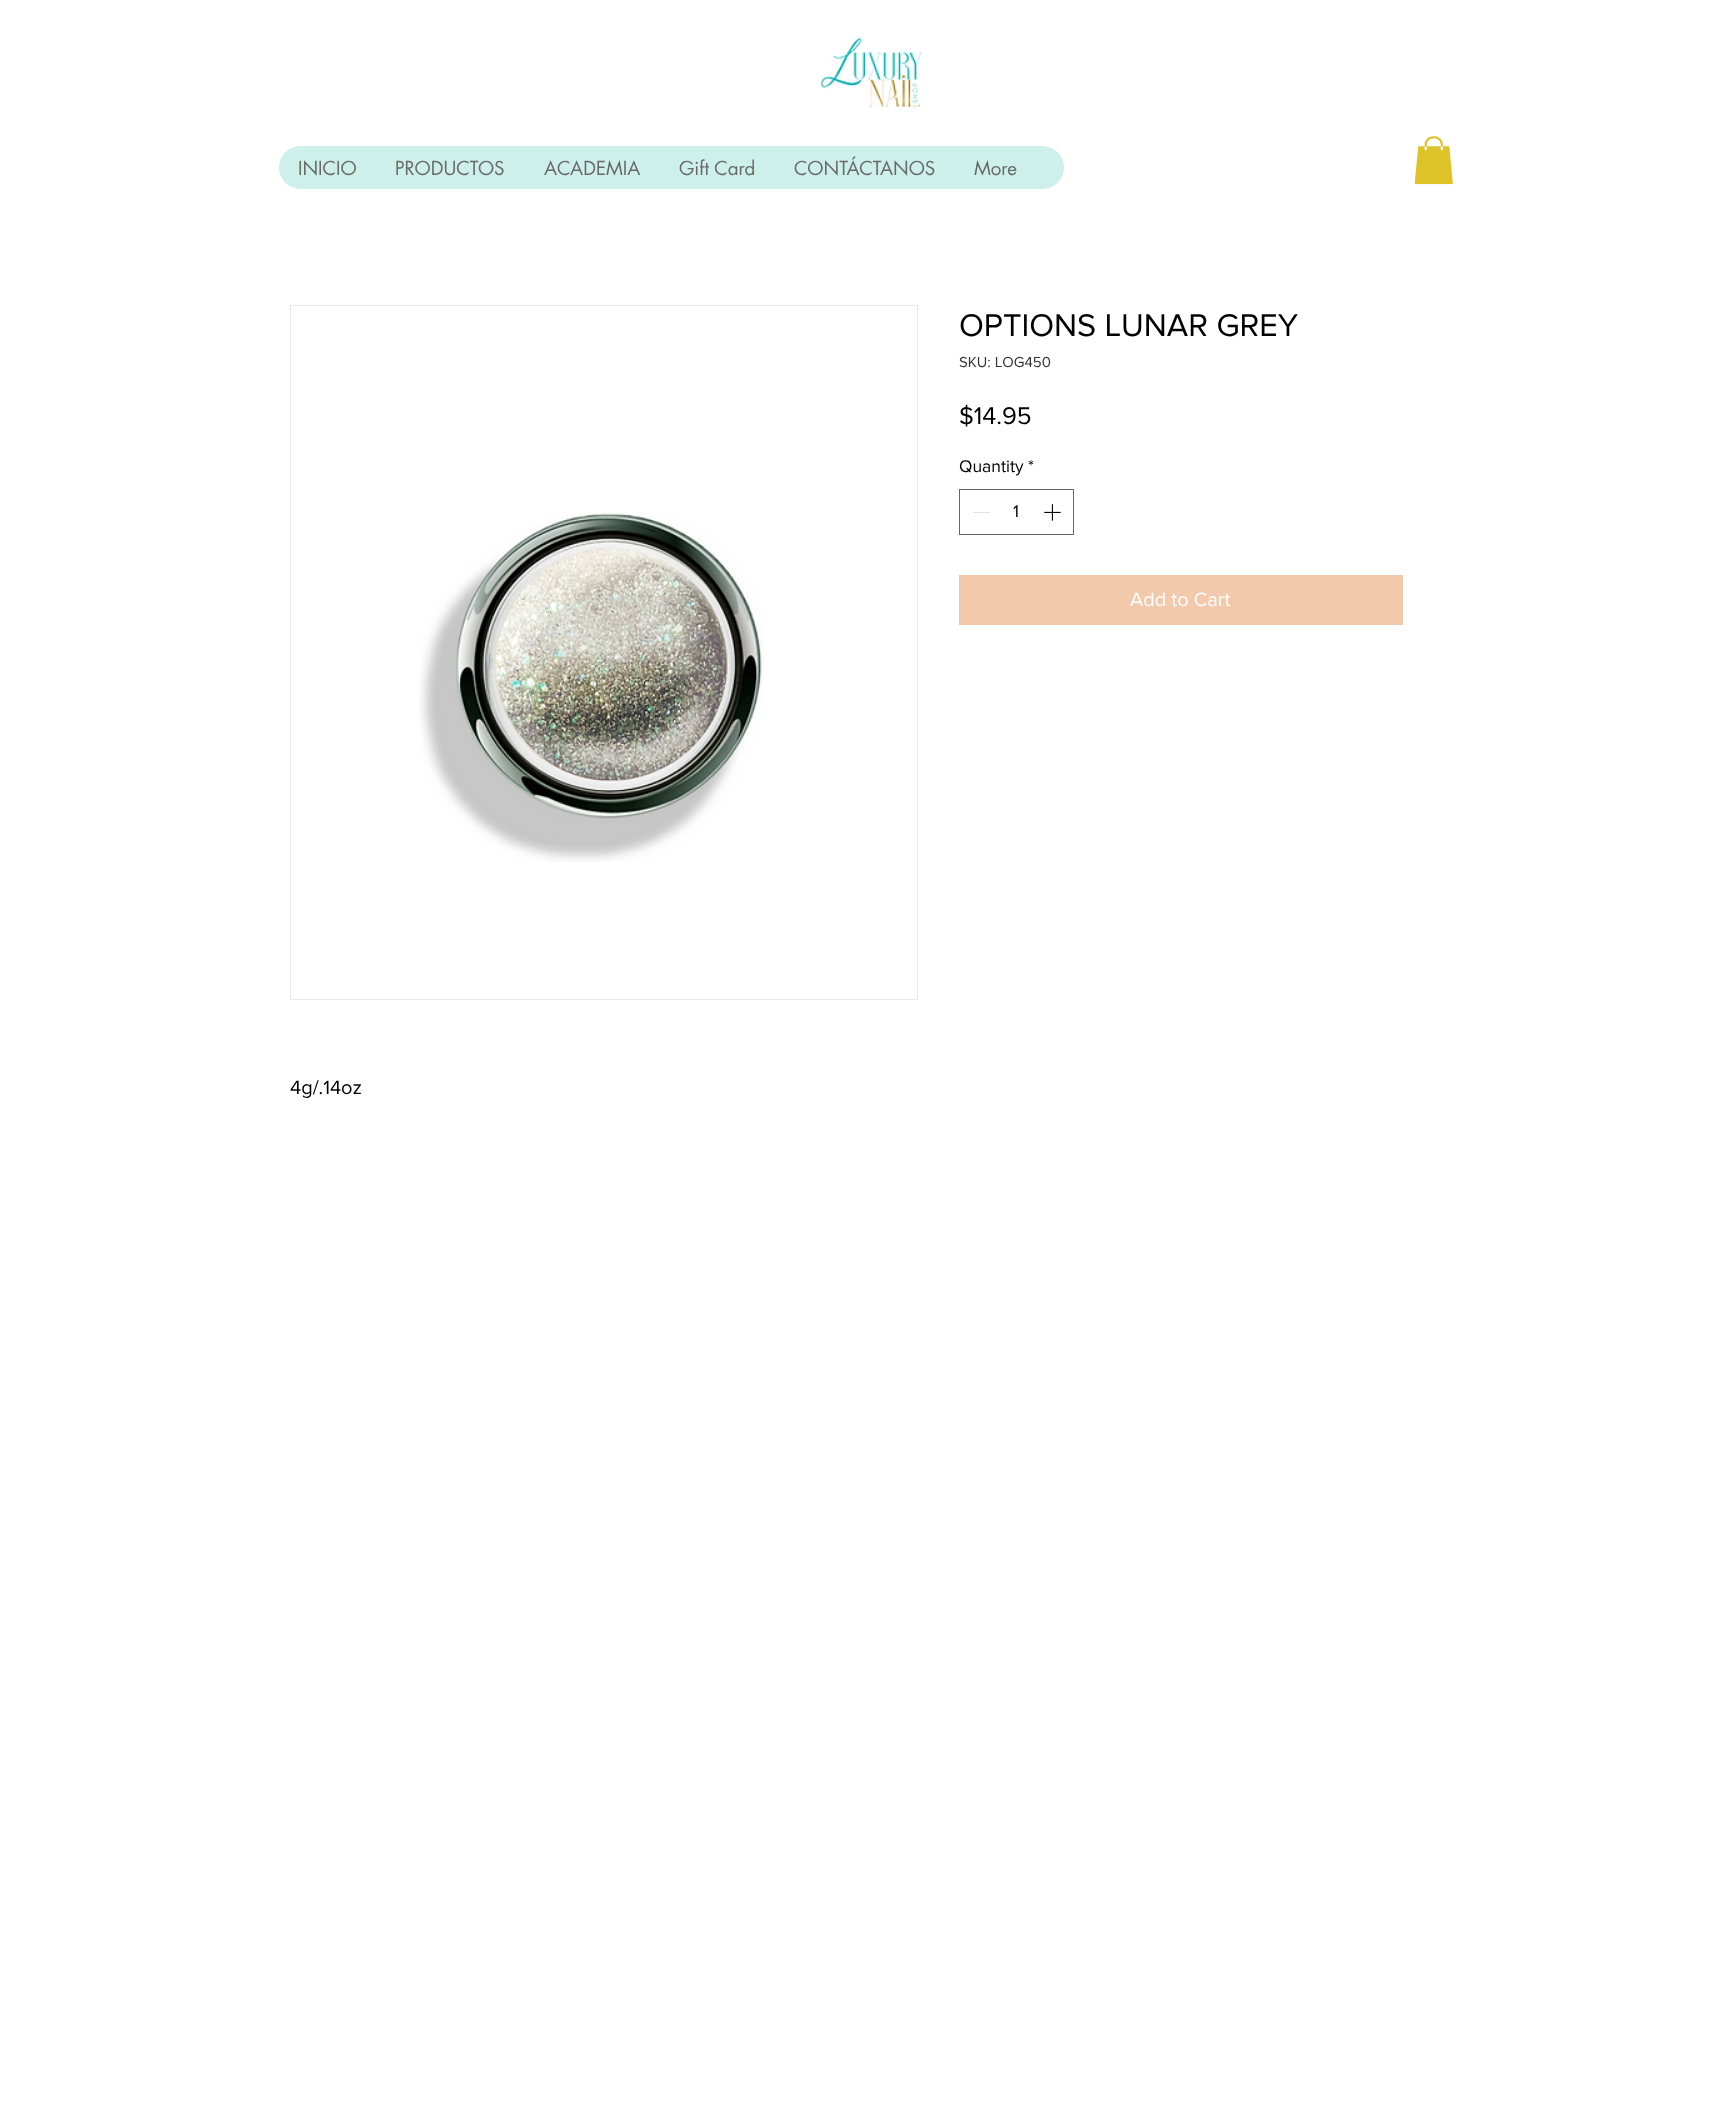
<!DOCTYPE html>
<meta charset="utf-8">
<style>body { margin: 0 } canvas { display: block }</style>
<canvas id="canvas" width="1719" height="2107"></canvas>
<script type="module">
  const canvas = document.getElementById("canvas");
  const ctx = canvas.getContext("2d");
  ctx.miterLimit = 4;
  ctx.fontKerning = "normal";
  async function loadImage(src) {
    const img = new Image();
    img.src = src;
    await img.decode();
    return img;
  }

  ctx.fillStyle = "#ffffff";
  ctx.fillRect(0, 0, 1719, 2107);
  ctx.drawImage(await loadImage("img1.png"), 821, 37, 102, 71);
  ctx.fillStyle = "#cef0ea";
  ctx.beginPath();
  ctx.roundRect(279, 146, 785, 43, 21.5);
  ctx.fill();
  ctx.font = "18.75px futura";
  ctx.fillStyle = "#696969";
  ctx.fillText("INICIO", 298, 175);
  ctx.fillText("PRODUCTOS", 395, 175);
  ctx.fillText("ACADEMIA", 544, 175);
  ctx.fillText("Gift Card", 679, 175);
  ctx.fillText("CONTÁCTANOS", 794, 175);
  ctx.fillText("More", 974, 175);
  ctx.drawImage(await loadImage("img2.png"), 1414, 136, 39, 49);
  ctx.font = "32.5px 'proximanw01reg'";
  ctx.fillStyle = "#000000";
  ctx.fillText("OPTIONS LUNAR GREY", 959, 336);
  ctx.font = "15px 'proximanw01reg'";
  ctx.fillStyle = "#333333";
  ctx.fillText("SKU: LOG450", 959, 367);
  ctx.font = "25px 'proximanw01reg'";
  ctx.fillStyle = "#000000";
  ctx.fillText("$14.95", 959, 424);
  ctx.font = "17.5px 'proximanw01reg'";
  ctx.fillText("Quantity", 959, 472);
  ctx.fillText("*", 1028, 472);
  ctx.strokeStyle = "#666666";
  ctx.strokeRect(959.5, 489.5, 114, 45);
  ctx.fillStyle = "#e3e3e3";
  ctx.fillRect(973, 512, 17, 1);
  ctx.fillStyle = "#000000";
  ctx.fillText("1", 1013, 517);
  ctx.drawImage(await loadImage("img3.png"), 1044, 504, 17, 17);
  ctx.fillStyle = "#f2c9aa";
  ctx.fillRect(959, 575, 444, 50);
  ctx.font = "20px 'proximanw01reg'";
  ctx.fillStyle = "#ffffff";
  ctx.fillText("Add to Cart", 1130, 606);
  ctx.strokeStyle = "#e8e8e8";
  ctx.strokeRect(290.5, 305.5, 627, 694);
  ctx.drawImage(await loadImage("img4.png"), 419, 513, 345, 349);
  ctx.fillStyle = "#000000";
  ctx.fillText("4g/.14oz", 290, 1094);
</script>
